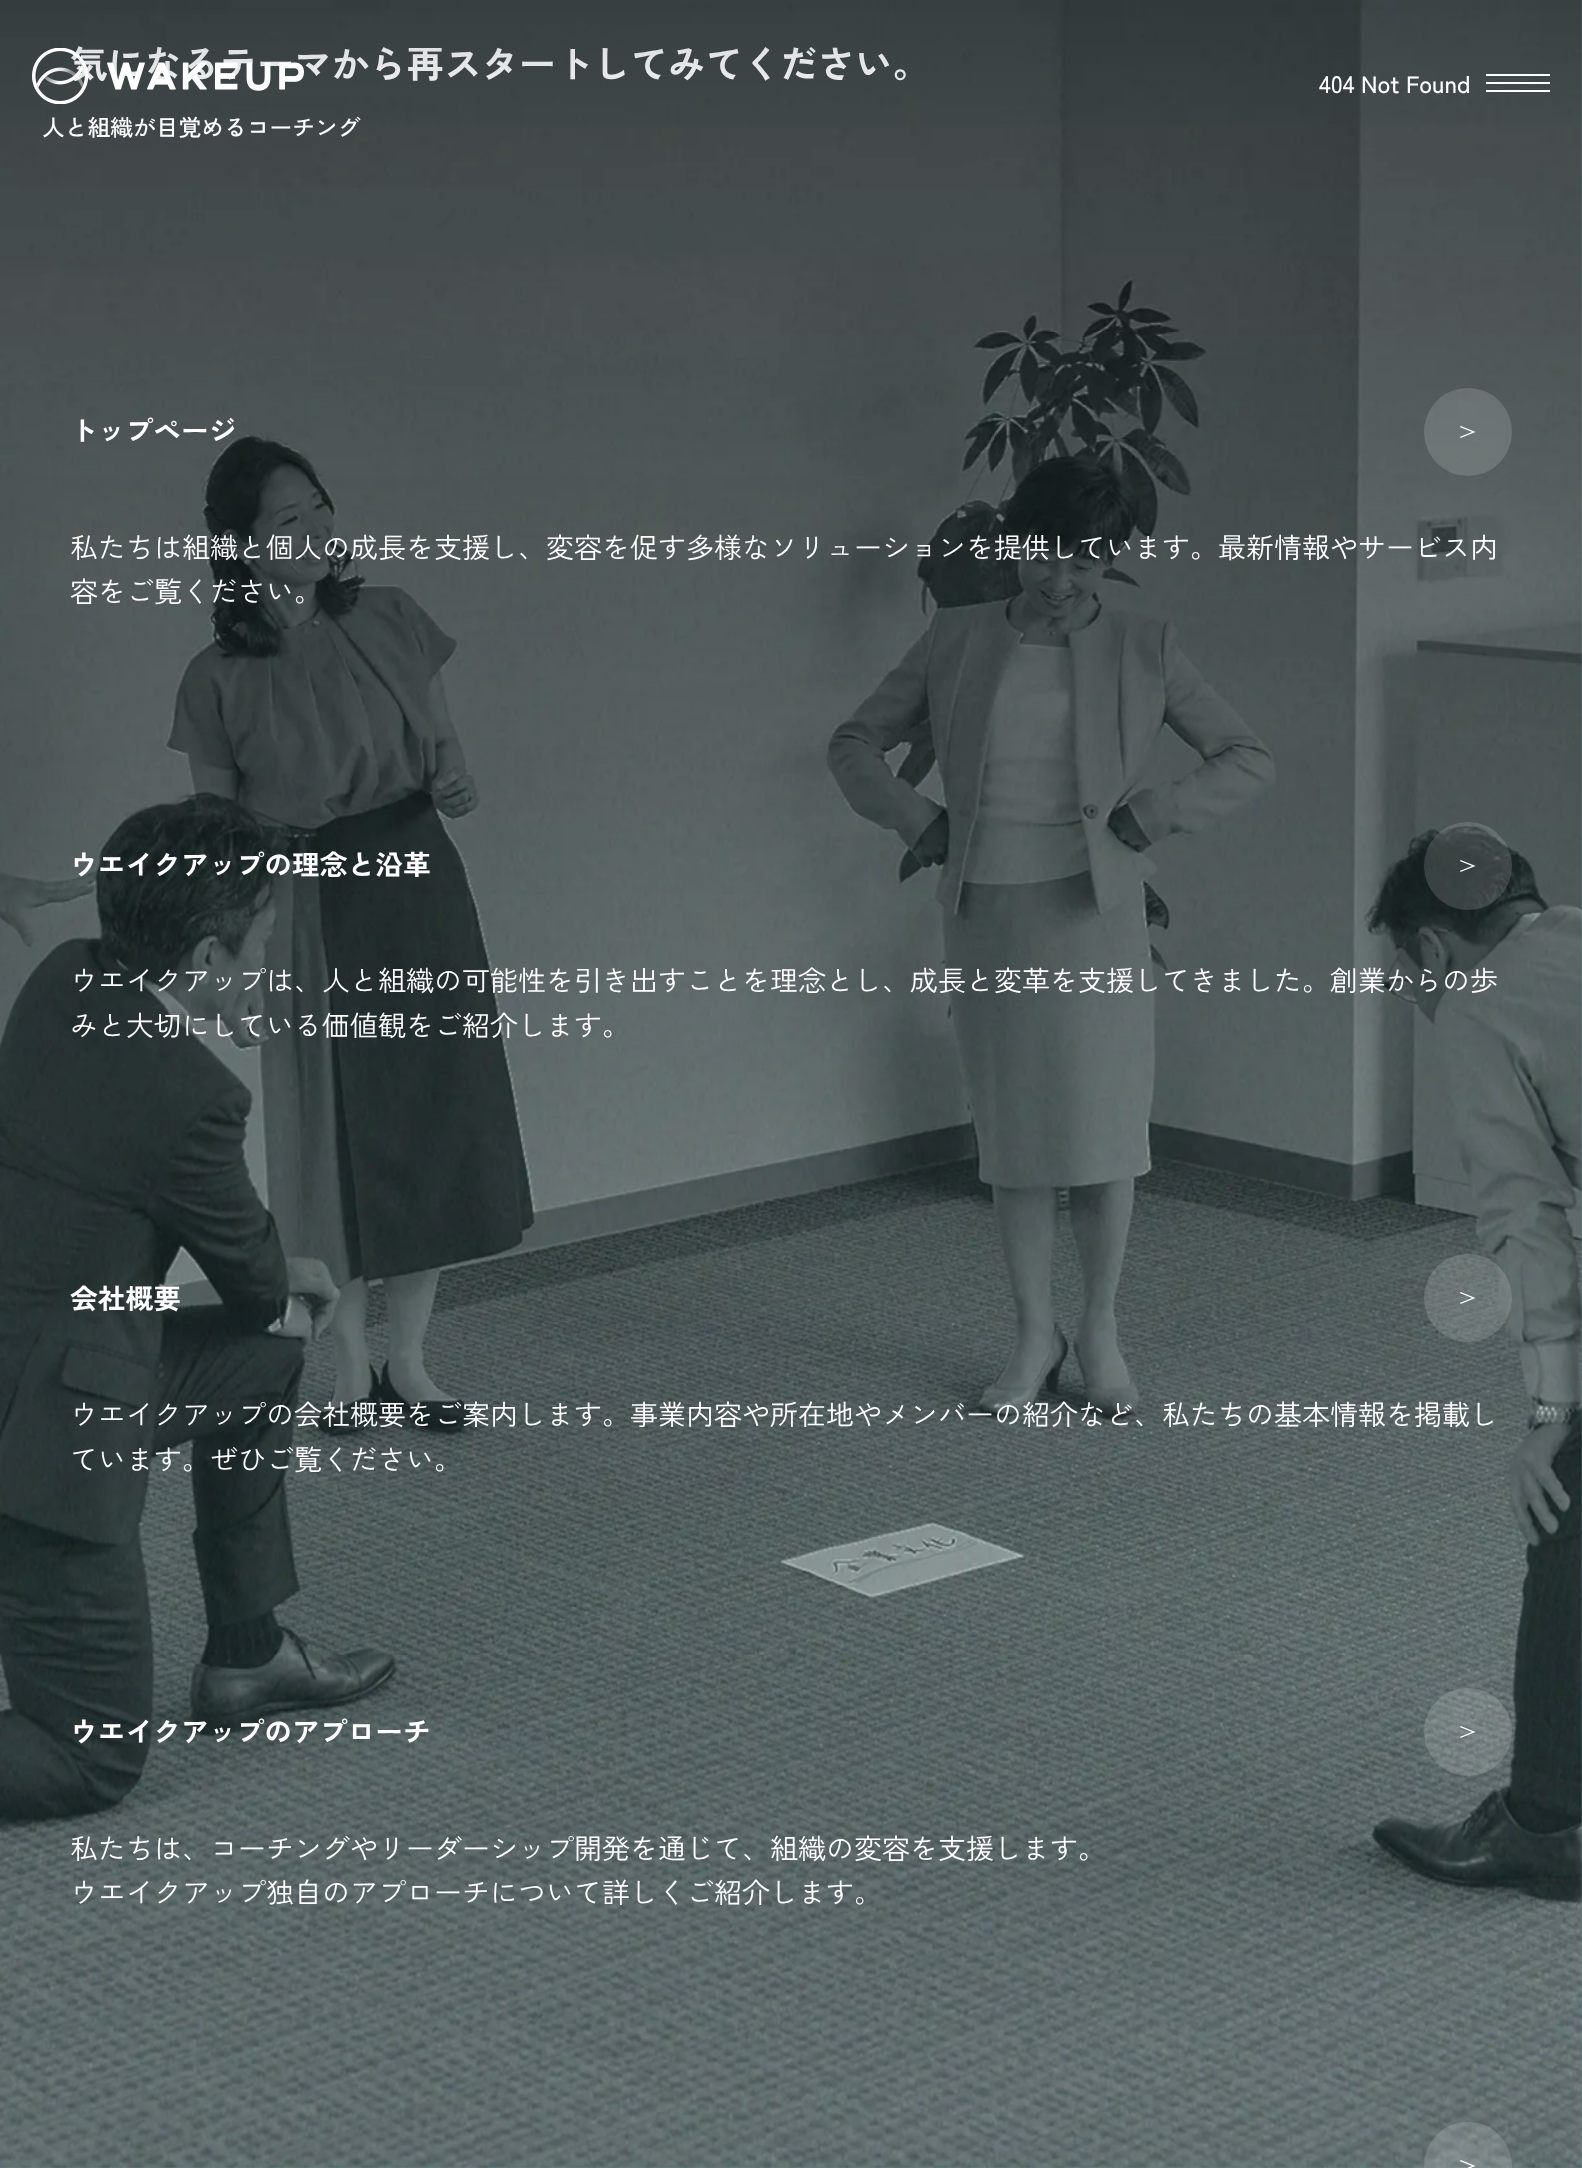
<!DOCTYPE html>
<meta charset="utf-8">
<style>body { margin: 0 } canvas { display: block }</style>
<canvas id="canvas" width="1582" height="2168"></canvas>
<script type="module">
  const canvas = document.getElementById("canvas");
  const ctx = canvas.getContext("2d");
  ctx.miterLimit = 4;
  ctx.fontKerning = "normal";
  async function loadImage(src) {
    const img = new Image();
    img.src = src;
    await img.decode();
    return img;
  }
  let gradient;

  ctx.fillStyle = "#55929c";
  ctx.fillRect(0, 0, 1582, 2168);
  ctx.drawImage(await loadImage("img1.png"), 0, 0, 1582, 2168);
  ctx.font = "bold 37.4px Zen Kaku Gothic New";
  ctx.fillStyle = "#ffffff";
  ctx.fillText("気になるテーマから再スタートしてみてください。", 70, 78);
  ctx.font = "bold 27.75px Zen Kaku Gothic New";
  ctx.fillText("トップページ", 70, 441);
  ctx.fillStyle = "rgba(255, 255, 255, 0.15)";
  ctx.beginPath();
  ctx.arc(1468, 432, 44, 0, Math.PI * 2);
  ctx.fill();
  ctx.drawImage(await loadImage("img2.png"), 1460, 426, 16, 12);
  ctx.font = "28px Zen Kaku Gothic New";
  ctx.fillStyle = "#ffffff";
  ctx.fillText("私たちは組織と個人の成長を支援し、変容を促す多様なソリューションを提供しています。最新情報やサービス内", 70, 558);
  ctx.fillText("容をご覧ください。", 70, 602);
  ctx.font = "bold 27.75px Zen Kaku Gothic New";
  ctx.fillText("ウエイクアップの理念と沿革", 70, 875);
  ctx.fillStyle = "rgba(255, 255, 255, 0.15)";
  ctx.beginPath();
  ctx.arc(1468, 866, 44, 0, Math.PI * 2);
  ctx.fill();
  ctx.drawImage(await loadImage("img3.png"), 1460, 860, 16, 12);
  ctx.font = "28px Zen Kaku Gothic New";
  ctx.fillStyle = "#ffffff";
  ctx.fillText("ウエイクアップは、人と組織の可能性を引き出すことを理念とし、成長と変革を支援してきました。創業からの歩", 70, 991);
  ctx.fillText("みと大切にしている価値観をご紹介します。", 70, 1036);
  ctx.font = "bold 27.75px Zen Kaku Gothic New";
  ctx.fillText("会社概要", 70, 1309);
  ctx.fillStyle = "rgba(255, 255, 255, 0.15)";
  ctx.beginPath();
  ctx.arc(1468, 1298, 44, 0, Math.PI * 2);
  ctx.fill();
  ctx.drawImage(await loadImage("img4.png"), 1460, 1292, 16, 12);
  ctx.font = "28px Zen Kaku Gothic New";
  ctx.fillStyle = "#ffffff";
  ctx.fillText("ウエイクアップの会社概要をご案内します。事業内容や所在地やメンバーの紹介など、私たちの基本情報を掲載し", 70, 1425);
  ctx.fillText("ています。ぜひご覧ください。", 70, 1470);
  ctx.font = "bold 27.75px Zen Kaku Gothic New";
  ctx.fillText("ウエイクアップのアプローチ", 70, 1742);
  ctx.fillStyle = "rgba(255, 255, 255, 0.15)";
  ctx.beginPath();
  ctx.arc(1468, 1732, 44, 0, Math.PI * 2);
  ctx.fill();
  ctx.drawImage(await loadImage("img5.png"), 1460, 1726, 16, 12);
  ctx.font = "28px Zen Kaku Gothic New";
  ctx.fillStyle = "#ffffff";
  ctx.fillText("私たちは、コーチングやリーダーシップ開発を通じて、組織の変容を支援します。", 70, 1859);
  ctx.fillText("ウエイクアップ独自のアプローチについて詳しくご紹介します。", 70, 1903);
  ctx.fillStyle = "rgba(255, 255, 255, 0.15)";
  ctx.beginPath();
  ctx.arc(1468, 2166, 44, 0, Math.PI * 2);
  ctx.fill();
  ctx.drawImage(await loadImage("img6.png"), 1460, 2160, 16, 8);
  gradient = ctx.createLinearGradient(791, 0, 791, 152);
  gradient.addColorStop(0, "rgba(20, 37, 44, 0.2)");
  gradient.addColorStop(1, "rgba(20, 37, 44, 0)");
  ctx.fillStyle = gradient;
  ctx.fillRect(0, 0, 1582, 124);
  ctx.font = "500 23.75px Zen Kaku Gothic New";
  ctx.fillStyle = "#ffffff";
  ctx.fillText("404 Not Found", 1319, 93);
  ctx.fillRect(1486, 74, 64, 2);
  ctx.fillRect(1486, 82, 64, 2);
  ctx.fillRect(1486, 90, 64, 2);
  ctx.drawImage(await loadImage("img7.png"), 32, 48, 272, 56);
  ctx.font = "500 22.75px Zen Kaku Gothic New";
  ctx.fillText("人と組織が目覚めるコーチング", 42, 136);
</script>
